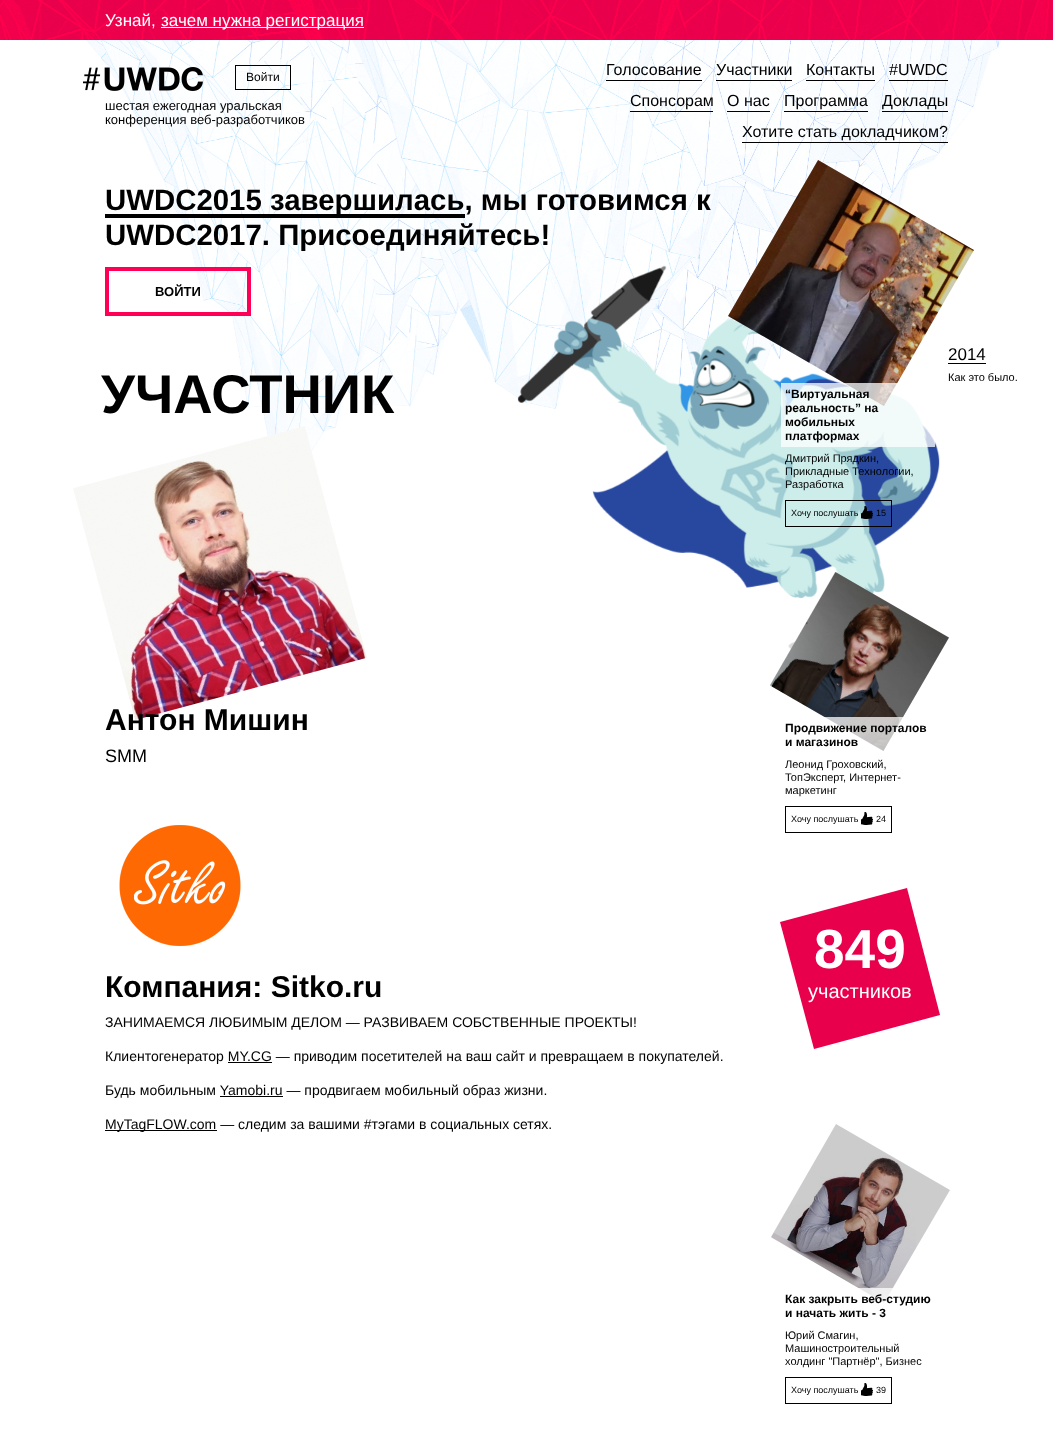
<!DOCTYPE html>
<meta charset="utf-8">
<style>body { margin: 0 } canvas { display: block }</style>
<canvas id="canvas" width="1053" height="1453"></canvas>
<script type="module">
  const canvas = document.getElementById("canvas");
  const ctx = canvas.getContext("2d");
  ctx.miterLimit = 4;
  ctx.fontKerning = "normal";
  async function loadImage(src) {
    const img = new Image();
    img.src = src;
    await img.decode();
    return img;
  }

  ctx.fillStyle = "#ffffff";
  ctx.fillRect(0, 0, 1053, 1453);
  ctx.drawImage(await loadImage("img1.png"), 0, 0, 1053, 40);
  ctx.font = "17px Liberation Sans";
  ctx.fillText("Узнай,", 105, 26);
  ctx.fillRect(161, 27, 203, 1);
  ctx.fillText("зачем нужна регистрация", 161, 26);
  ctx.drawImage(await loadImage("img2.png"), 48, 40, 972, 438);
  ctx.drawImage(await loadImage("img3.png"), 517, 265, 423, 384);
  ctx.drawImage(await loadImage("img4.png"), 83, 67, 120, 24);
  ctx.strokeStyle = "#000000";
  ctx.strokeRect(235.5, 65.5, 55, 24);
  ctx.font = "12px Liberation Sans";
  ctx.fillStyle = "#000000";
  ctx.fillText("Войти", 246, 81);
  ctx.font = "13px Liberation Sans";
  ctx.fillText("шестая ежегодная уральская", 105, 110);
  ctx.fillText("конференция веб-разработчиков", 105, 124);
  ctx.fillRect(606, 80, 96, 1);
  ctx.font = "16px Liberation Sans";
  ctx.fillText("Голосование", 606, 75);
  ctx.fillRect(716, 80, 76, 1);
  ctx.fillText("Участники", 716, 75);
  ctx.fillRect(806, 80, 69, 1);
  ctx.fillText("Контакты", 806, 75);
  ctx.fillRect(889, 80, 59, 1);
  ctx.fillText("#UWDC", 889, 75);
  ctx.fillRect(630, 111, 83, 1);
  ctx.fillText("Спонсорам", 630, 106);
  ctx.fillRect(727, 111, 43, 1);
  ctx.fillText("О наc", 727, 106);
  ctx.fillRect(784, 111, 84, 1);
  ctx.fillText("Программа", 784, 106);
  ctx.fillRect(882, 111, 66, 1);
  ctx.fillText("Доклады", 882, 106);
  ctx.fillRect(742, 142, 206, 1);
  ctx.fillText("Хотите стать докладчиком?", 742, 137);
  ctx.fillRect(105, 214, 360, 4);
  ctx.font = "bold 29.4px Liberation Sans";
  ctx.fillText("UWDC2015 завершилась, мы готовимся к", 105, 210);
  ctx.fillText("UWDC2017. Присоединяйтесь!", 105, 245);
  ctx.strokeStyle = "#ff0056";
  ctx.lineWidth = 4;
  ctx.strokeRect(107, 269, 142, 45);
  ctx.font = "bold 13px Liberation Sans";
  ctx.fillText("ВОЙТИ", 155, 296);
  ctx.font = "bold 54.5px Liberation Sans";
  ctx.fillText("УЧАСТНИК", 101, 413);
  ctx.drawImage(await loadImage("img5.png"), 73, 426, 294, 294);
  ctx.font = "bold 30px Liberation Sans";
  ctx.fillText("Антон Мишин", 105, 730);
  ctx.font = "18px Liberation Sans";
  ctx.fillText("SMM", 105, 762);
  ctx.drawImage(await loadImage("img6.png"), 119, 825, 122, 121);
  ctx.font = "bold 30px Liberation Sans";
  ctx.fillText("Компания: Sitko.ru", 105, 997);
  ctx.font = "14px Liberation Sans";
  ctx.fillText("ЗАНИМАЕМСЯ ЛЮБИМЫМ ДЕЛОМ — РАЗВИВАЕМ СОБСТВЕННЫЕ ПРОЕКТЫ!", 105, 1027);
  ctx.fillText("Клиентогенератор MY.CG — приводим посетителей на ваш сайт и превращаем в покупателей.", 105, 1061);
  ctx.fillRect(228, 1062, 44, 1);
  ctx.fillText("Будь мобильным Yamobi.ru — продвигаем мобильный образ жизни.", 105, 1095);
  ctx.fillRect(220, 1096, 63, 1);
  ctx.fillRect(105, 1130, 112, 1);
  ctx.fillText("MyTagFLOW.com — следим за вашими #тэгами в социальных сетях.", 105, 1129);
  ctx.drawImage(await loadImage("img7.png"), 728, 160, 246, 246);
  ctx.fillStyle = "rgba(0, 0, 0, 0.2)";
  ctx.beginPath();
  ctx.moveTo(818, 160);
  ctx.lineTo(974, 250);
  ctx.lineTo(884, 406);
  ctx.lineTo(728, 316);
  ctx.closePath();
  ctx.fill();
  ctx.fillStyle = "rgba(255, 255, 255, 0.75)";
  ctx.fillRect(781, 383, 154, 64);
  ctx.font = "bold 12px Liberation Sans";
  ctx.fillStyle = "#000000";
  ctx.fillText("“Виртуальная", 785, 398);
  ctx.fillText("реальность” на", 785, 412);
  ctx.fillText("мобильных", 785, 426);
  ctx.fillText("платформах", 785, 440);
  ctx.font = "11px Liberation Sans";
  ctx.fillText("Дмитрий Прядкин,", 785, 462);
  ctx.fillText("Прикладные Технологии,", 785, 475);
  ctx.fillText("Разработка", 785, 488);
  ctx.strokeStyle = "#000000";
  ctx.lineWidth = 1;
  ctx.strokeRect(785.5, 500.5, 106, 26);
  ctx.font = "9px Liberation Sans";
  ctx.fillText("Хочу послушать", 791, 516);
  ctx.drawImage(await loadImage("img8.png"), 861, 506, 12, 13);
  ctx.fillText("15", 876, 516);
  ctx.drawImage(await loadImage("img9.png"), 770, 572, 179, 179);
  ctx.fillStyle = "rgba(0, 0, 0, 0.2)";
  ctx.beginPath();
  ctx.moveTo(835, 572);
  ctx.lineTo(949, 638);
  ctx.lineTo(883, 751);
  ctx.lineTo(770, 685);
  ctx.closePath();
  ctx.fill();
  ctx.fillStyle = "rgba(255, 255, 255, 0.75)";
  ctx.fillRect(824, 717, 79, 34);
  ctx.font = "bold 12px Liberation Sans";
  ctx.fillStyle = "#000000";
  ctx.fillText("Продвижение порталов", 785, 732);
  ctx.fillText("и магазинов", 785, 746);
  ctx.font = "11px Liberation Sans";
  ctx.fillText("Леонид Гроховский,", 785, 768);
  ctx.fillText("ТопЭксперт, Интернет-", 785, 781);
  ctx.fillText("маркетинг", 785, 794);
  ctx.strokeRect(785.5, 806.5, 106, 26);
  ctx.font = "9px Liberation Sans";
  ctx.fillText("Хочу послушать", 791, 822);
  ctx.drawImage(await loadImage("img10.png"), 861, 812, 12, 13);
  ctx.fillText("24", 876, 822);
  ctx.fillStyle = "#e8004c";
  ctx.beginPath();
  ctx.moveTo(780, 922);
  ctx.lineTo(907, 888);
  ctx.lineTo(940, 1015);
  ctx.lineTo(814, 1049);
  ctx.closePath();
  ctx.fill();
  ctx.font = "bold 55px Liberation Sans";
  ctx.fillStyle = "#ffffff";
  ctx.fillText("849", 814, 968);
  ctx.font = "20px Liberation Sans";
  ctx.fillText("участников", 808, 998);
  ctx.drawImage(await loadImage("img11.png"), 771, 1155, 145, 148);
  ctx.fillStyle = "rgba(0, 0, 0, 0.2)";
  ctx.beginPath();
  ctx.moveTo(836, 1124);
  ctx.lineTo(950, 1190);
  ctx.lineTo(884, 1303);
  ctx.lineTo(771, 1237);
  ctx.closePath();
  ctx.fill();
  ctx.fillStyle = "rgba(255, 255, 255, 0.75)";
  ctx.fillRect(858, 1288, 35, 15);
  ctx.font = "bold 12px Liberation Sans";
  ctx.fillStyle = "#000000";
  ctx.fillText("Как закрыть веб-студию", 785, 1303);
  ctx.fillText("и начать жить - 3", 785, 1317);
  ctx.font = "11px Liberation Sans";
  ctx.fillText("Юрий Смагин,", 785, 1339);
  ctx.fillText("Машиностроительный", 785, 1352);
  ctx.fillText("холдинг \"Партнёр\", Бизнес", 785, 1365);
  ctx.strokeRect(785.5, 1377.5, 106, 26);
  ctx.font = "9px Liberation Sans";
  ctx.fillText("Хочу послушать", 791, 1393);
  ctx.drawImage(await loadImage("img10.png"), 861, 1383, 12, 13);
  ctx.fillText("39", 876, 1393);
  ctx.fillRect(948, 363, 38, 1);
  ctx.font = "17px Liberation Sans";
  ctx.fillText("2014", 948, 360);
  ctx.font = "11px Liberation Sans";
  ctx.fillText("Как это было.", 948, 381);
</script>
